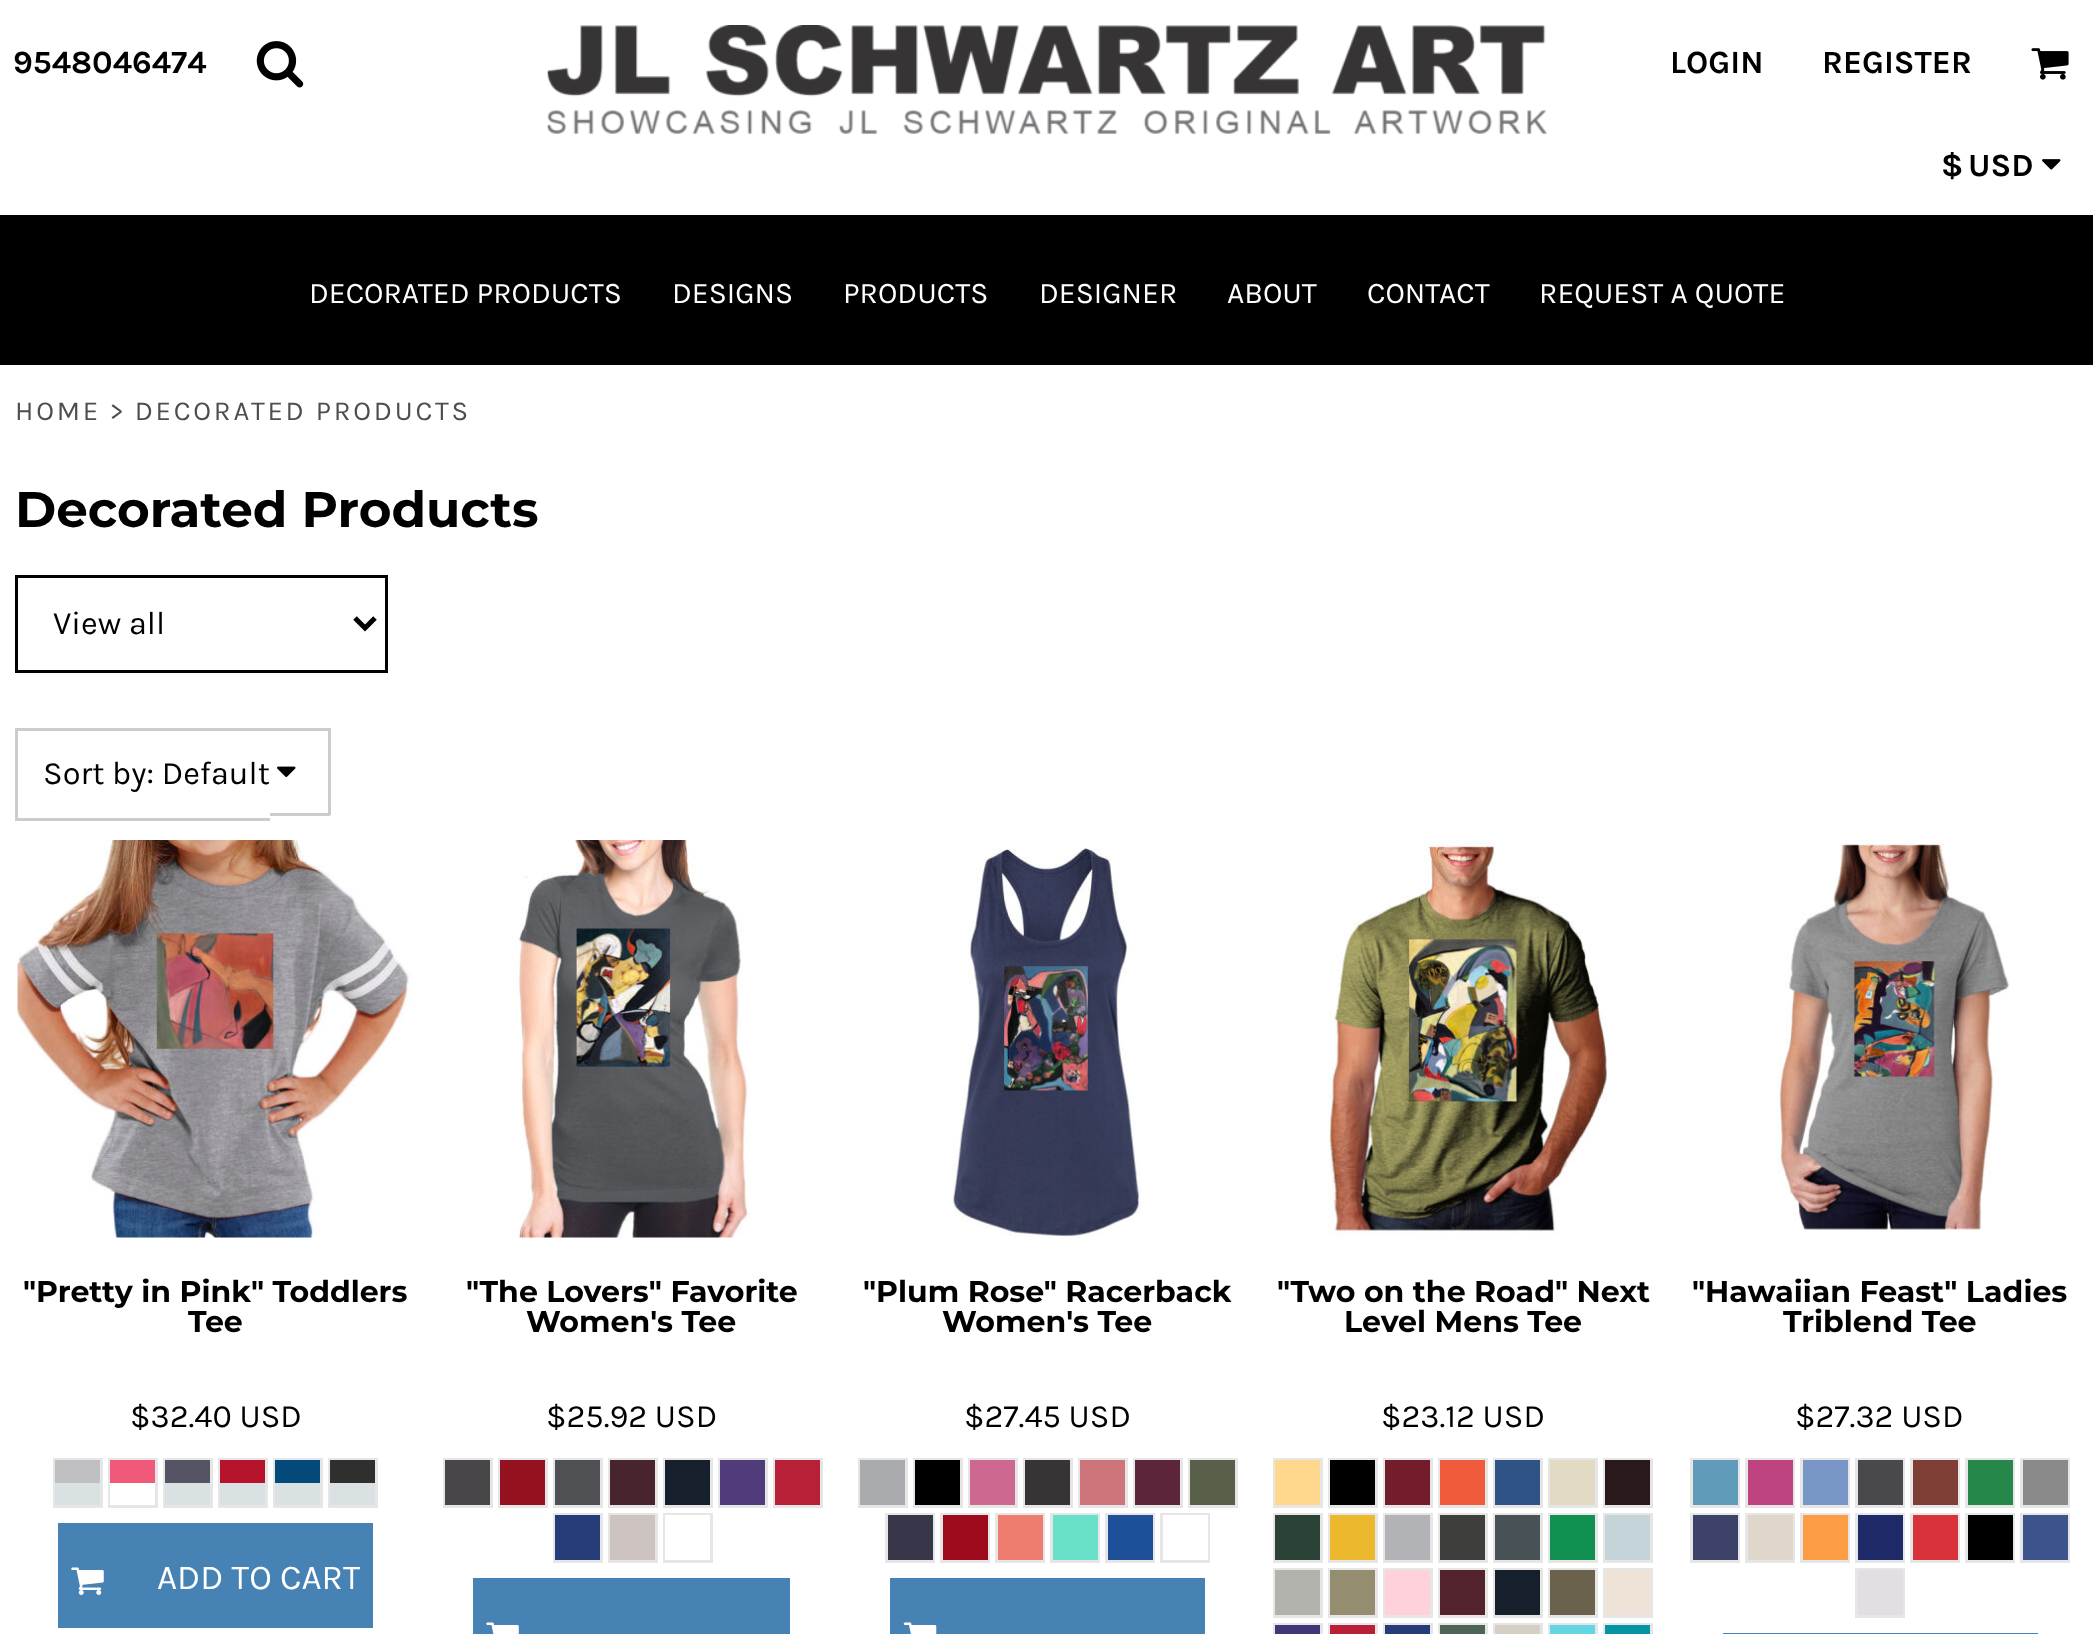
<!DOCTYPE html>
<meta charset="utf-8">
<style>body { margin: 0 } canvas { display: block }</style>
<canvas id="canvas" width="2093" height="1634"></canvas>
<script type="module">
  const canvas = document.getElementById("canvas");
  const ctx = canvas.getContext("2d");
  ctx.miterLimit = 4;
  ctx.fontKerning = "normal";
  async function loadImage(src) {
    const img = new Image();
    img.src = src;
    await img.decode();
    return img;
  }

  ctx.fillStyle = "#ffffff";
  ctx.fillRect(0, 0, 2093, 1634);
  ctx.font = "bold 32.5px Karla";
  ctx.fillStyle = "#000000";
  ctx.fillText("9548046474", 13, 73);
  ctx.drawImage(await loadImage("img1.png"), 256, 41, 48, 47);
  ctx.drawImage(await loadImage("img2.png"), 547, 25, 1000, 109);
  ctx.fillText("LOGIN", 1670, 73);
  ctx.fillText("REGISTER", 1822, 73);
  ctx.drawImage(await loadImage("img3.png"), 2031, 48, 38, 32);
  ctx.fillText("$", 1941, 176);
  ctx.fillText("USD", 1968, 176);
  ctx.drawImage(await loadImage("img4.png"), 2042, 159, 19, 11);
  ctx.fillRect(0, 215, 2093, 150);
  ctx.font = "30px Karla";
  ctx.fillStyle = "#ffffff";
  ctx.fillText("DECORATED PRODUCTS", 309, 303);
  ctx.fillText("DESIGNS", 672, 303);
  ctx.fillText("PRODUCTS", 843, 303);
  ctx.fillText("DESIGNER", 1039, 303);
  ctx.fillText("ABOUT", 1227, 303);
  ctx.fillText("CONTACT", 1367, 303);
  ctx.fillText("REQUEST A QUOTE", 1539, 303);
  ctx.letterSpacing = "2.75px";
  ctx.font = "27.5px Karla";
  ctx.fillStyle = "#4d4d4d";
  ctx.fillText("HOME > DECORATED PRODUCTS", 15, 420);
  ctx.letterSpacing = "0px";
  ctx.font = "100 50px Montserrat";
  ctx.fillStyle = "#000000";
  ctx.fillText("Decorated Products", 15, 527);
  ctx.strokeStyle = "#000000";
  ctx.lineWidth = 3;
  ctx.strokeRect(16.5, 576.5, 370, 95);
  ctx.beginPath();
  ctx.moveTo(355, 618);
  ctx.lineTo(365, 628);
  ctx.lineTo(375, 618);
  ctx.lineWidth = 5;
  ctx.stroke();
  ctx.font = "32.5px Karla";
  ctx.fillText("View all", 53, 634);
  ctx.fillStyle = "#cccccc";
  ctx.fillRect(15, 728, 315, 3);
  ctx.fillRect(15, 818, 255, 3);
  ctx.fillRect(15, 728, 3, 92);
  ctx.fillRect(328, 728, 3, 87);
  ctx.fillRect(270, 813, 60, 3);
  ctx.fillStyle = "#000000";
  ctx.fillText("Sort by: Default", 43, 784);
  ctx.drawImage(await loadImage("img5.png"), 277, 766, 19, 11);
  ctx.drawImage(await loadImage("img6.png"), 17, 840, 396, 398);
  ctx.font = "100 30px Montserrat";
  ctx.fillText("\"Pretty in Pink\" Toddlers", 23, 1302);
  ctx.fillText("Tee", 188, 1332);
  ctx.font = "32.5px Karla";
  ctx.fillText("$32.40 USD", 130, 1427);
  ctx.strokeStyle = "#e6e6e6";
  ctx.lineWidth = 3;
  ctx.strokeRect(54.5, 1459.5, 47, 47);
  ctx.fillStyle = "#c0c0c2";
  ctx.fillRect(55, 1460, 45, 23);
  ctx.fillStyle = "#d9e1e2";
  ctx.fillRect(55, 1483, 45, 22);
  ctx.strokeRect(109.5, 1459.5, 47, 47);
  ctx.fillStyle = "#f0597a";
  ctx.fillRect(110, 1460, 45, 23);
  ctx.fillStyle = "#ffffff";
  ctx.fillRect(110, 1483, 1, 22);
  ctx.strokeRect(164.5, 1459.5, 47, 47);
  ctx.fillStyle = "#555464";
  ctx.fillRect(165, 1460, 45, 23);
  ctx.fillStyle = "#d9e1e2";
  ctx.fillRect(165, 1483, 45, 22);
  ctx.strokeRect(219.5, 1459.5, 47, 47);
  ctx.fillStyle = "#b5122b";
  ctx.fillRect(220, 1460, 45, 23);
  ctx.fillStyle = "#d9e1e2";
  ctx.fillRect(220, 1483, 45, 22);
  ctx.strokeRect(274.5, 1459.5, 47, 47);
  ctx.fillStyle = "#034a7a";
  ctx.fillRect(275, 1460, 45, 23);
  ctx.fillStyle = "#d9e1e2";
  ctx.fillRect(275, 1483, 45, 22);
  ctx.strokeRect(329.5, 1459.5, 47, 47);
  ctx.fillStyle = "#302f2f";
  ctx.fillRect(330, 1460, 45, 23);
  ctx.fillStyle = "#d9e1e2";
  ctx.fillRect(330, 1483, 45, 22);
  ctx.fillStyle = "#4682b4";
  ctx.fillRect(58, 1523, 315, 105);
  ctx.drawImage(await loadImage("img7.png"), 71, 1567, 33, 28);
  ctx.save();
  ctx.beginPath();
  ctx.rect(70, 1558, 290, 42);
  ctx.clip();
  ctx.font = "35px Karla";
  ctx.fillStyle = "#ffffff";
  ctx.fillText("ADD TO CART", 157, 1589);
  ctx.restore();
  ctx.drawImage(await loadImage("img8.png"), 512, 840, 239, 398);
  ctx.font = "100 30px Montserrat";
  ctx.fillStyle = "#000000";
  ctx.fillText("\"The Lovers\" Favorite", 466, 1302);
  ctx.fillText("Women's Tee", 526, 1332);
  ctx.font = "32.5px Karla";
  ctx.fillText("$25.92 USD", 546, 1427);
  ctx.strokeRect(444.5, 1459.5, 47, 47);
  ctx.fillStyle = "#484648";
  ctx.fillRect(445, 1460, 45, 45);
  ctx.strokeRect(499.5, 1459.5, 47, 47);
  ctx.fillStyle = "#94111f";
  ctx.fillRect(500, 1460, 45, 45);
  ctx.strokeRect(554.5, 1459.5, 47, 47);
  ctx.fillStyle = "#4e5054";
  ctx.fillRect(555, 1460, 45, 45);
  ctx.strokeRect(609.5, 1459.5, 47, 47);
  ctx.fillStyle = "#48252c";
  ctx.fillRect(610, 1460, 45, 45);
  ctx.strokeRect(664.5, 1459.5, 47, 47);
  ctx.fillStyle = "#16202c";
  ctx.fillRect(665, 1460, 45, 45);
  ctx.strokeRect(719.5, 1459.5, 47, 47);
  ctx.fillStyle = "#503c7b";
  ctx.fillRect(720, 1460, 45, 45);
  ctx.strokeRect(774.5, 1459.5, 47, 47);
  ctx.fillStyle = "#b82038";
  ctx.fillRect(775, 1460, 45, 45);
  ctx.strokeRect(554.5, 1514.5, 47, 47);
  ctx.fillStyle = "#253c79";
  ctx.fillRect(555, 1515, 45, 45);
  ctx.strokeRect(609.5, 1514.5, 47, 47);
  ctx.fillStyle = "#cdc3c1";
  ctx.fillRect(610, 1515, 45, 45);
  ctx.strokeRect(664.5, 1514.5, 47, 47);
  ctx.fillStyle = "#ffffff";
  ctx.fillRect(665, 1515, 45, 45);
  ctx.fillStyle = "#4682b4";
  ctx.fillRect(473, 1578, 317, 56);
  ctx.drawImage(await loadImage("img9.png"), 486, 1622, 33, 12);
  ctx.drawImage(await loadImage("img10.png"), 952, 848, 190, 390);
  ctx.font = "100 30px Montserrat";
  ctx.fillStyle = "#000000";
  ctx.fillText("\"Plum Rose\" Racerback", 863, 1302);
  ctx.fillText("Women's Tee", 942, 1332);
  ctx.font = "32.5px Karla";
  ctx.fillText("$27.45 USD", 964, 1427);
  ctx.strokeRect(859.5, 1459.5, 47, 47);
  ctx.fillStyle = "#a8aaae";
  ctx.fillRect(860, 1460, 45, 45);
  ctx.strokeRect(914.5, 1459.5, 47, 47);
  ctx.fillStyle = "#000000";
  ctx.fillRect(915, 1460, 45, 45);
  ctx.strokeRect(969.5, 1459.5, 47, 47);
  ctx.fillStyle = "#cd6890";
  ctx.fillRect(970, 1460, 45, 45);
  ctx.strokeRect(1024.5, 1459.5, 47, 47);
  ctx.fillStyle = "#383435";
  ctx.fillRect(1025, 1460, 45, 45);
  ctx.strokeRect(1079.5, 1459.5, 47, 47);
  ctx.fillStyle = "#ce757b";
  ctx.fillRect(1080, 1460, 45, 45);
  ctx.strokeRect(1134.5, 1459.5, 47, 47);
  ctx.fillStyle = "#5d253c";
  ctx.fillRect(1135, 1460, 45, 45);
  ctx.strokeRect(1189.5, 1459.5, 47, 47);
  ctx.fillStyle = "#59604a";
  ctx.fillRect(1190, 1460, 45, 45);
  ctx.strokeRect(886.5, 1514.5, 47, 47);
  ctx.fillStyle = "#373749";
  ctx.fillRect(888, 1515, 45, 45);
  ctx.strokeRect(941.5, 1514.5, 47, 47);
  ctx.fillStyle = "#9e0b1d";
  ctx.fillRect(943, 1515, 45, 45);
  ctx.strokeRect(996.5, 1514.5, 47, 47);
  ctx.fillStyle = "#ee7c6f";
  ctx.fillRect(998, 1515, 45, 45);
  ctx.strokeRect(1051.5, 1514.5, 47, 47);
  ctx.fillStyle = "#68e1c8";
  ctx.fillRect(1053, 1515, 45, 45);
  ctx.strokeRect(1106.5, 1514.5, 47, 47);
  ctx.fillStyle = "#1d5099";
  ctx.fillRect(1108, 1515, 45, 45);
  ctx.strokeRect(1161.5, 1514.5, 47, 47);
  ctx.fillStyle = "#ffffff";
  ctx.fillRect(1163, 1515, 45, 45);
  ctx.fillStyle = "#4682b4";
  ctx.fillRect(890, 1578, 315, 56);
  ctx.drawImage(await loadImage("img11.png"), 903, 1622, 34, 12);
  ctx.drawImage(await loadImage("img12.png"), 1328, 840, 279, 397);
  ctx.font = "100 30px Montserrat";
  ctx.fillStyle = "#000000";
  ctx.fillText("\"Two on the Road\" Next", 1277, 1302);
  ctx.fillText("Level Mens Tee", 1344, 1332);
  ctx.font = "32.5px Karla";
  ctx.fillText("$23.12 USD", 1381, 1427);
  ctx.strokeRect(1274.5, 1459.5, 47, 47);
  ctx.fillStyle = "#ffd88e";
  ctx.fillRect(1275, 1460, 45, 45);
  ctx.strokeRect(1329.5, 1459.5, 47, 47);
  ctx.fillStyle = "#000000";
  ctx.fillRect(1330, 1460, 45, 45);
  ctx.strokeRect(1384.5, 1459.5, 47, 47);
  ctx.fillStyle = "#731c2c";
  ctx.fillRect(1385, 1460, 45, 45);
  ctx.strokeRect(1439.5, 1459.5, 47, 47);
  ctx.fillStyle = "#f05b3b";
  ctx.fillRect(1440, 1460, 45, 45);
  ctx.strokeRect(1494.5, 1459.5, 47, 47);
  ctx.fillStyle = "#2f5385";
  ctx.fillRect(1495, 1460, 45, 45);
  ctx.strokeRect(1549.5, 1459.5, 47, 47);
  ctx.fillStyle = "#e3dac3";
  ctx.fillRect(1550, 1460, 45, 45);
  ctx.strokeRect(1604.5, 1459.5, 47, 47);
  ctx.fillStyle = "#29191a";
  ctx.fillRect(1605, 1460, 45, 45);
  ctx.strokeRect(1274.5, 1514.5, 47, 47);
  ctx.fillStyle = "#2b4336";
  ctx.fillRect(1275, 1515, 45, 45);
  ctx.strokeRect(1329.5, 1514.5, 47, 47);
  ctx.fillStyle = "#ecb82e";
  ctx.fillRect(1330, 1515, 45, 45);
  ctx.strokeRect(1384.5, 1514.5, 47, 47);
  ctx.fillStyle = "#b1b3b6";
  ctx.fillRect(1385, 1515, 45, 45);
  ctx.strokeRect(1439.5, 1514.5, 47, 47);
  ctx.fillStyle = "#3e3e3c";
  ctx.fillRect(1440, 1515, 45, 45);
  ctx.strokeRect(1494.5, 1514.5, 47, 47);
  ctx.fillStyle = "#485156";
  ctx.fillRect(1495, 1515, 45, 45);
  ctx.strokeRect(1549.5, 1514.5, 47, 47);
  ctx.fillStyle = "#109152";
  ctx.fillRect(1550, 1515, 45, 45);
  ctx.strokeRect(1604.5, 1514.5, 47, 47);
  ctx.fillStyle = "#c5d4d9";
  ctx.fillRect(1605, 1515, 45, 45);
  ctx.strokeRect(1274.5, 1569.5, 47, 47);
  ctx.fillStyle = "#b2b3ad";
  ctx.fillRect(1275, 1570, 45, 45);
  ctx.strokeRect(1329.5, 1569.5, 47, 47);
  ctx.fillStyle = "#958d70";
  ctx.fillRect(1330, 1570, 45, 45);
  ctx.strokeRect(1384.5, 1569.5, 47, 47);
  ctx.fillStyle = "#fed1db";
  ctx.fillRect(1385, 1570, 45, 45);
  ctx.strokeRect(1439.5, 1569.5, 47, 47);
  ctx.fillStyle = "#52232c";
  ctx.fillRect(1440, 1570, 45, 45);
  ctx.strokeRect(1494.5, 1569.5, 47, 47);
  ctx.fillStyle = "#16202c";
  ctx.fillRect(1495, 1570, 45, 45);
  ctx.strokeRect(1549.5, 1569.5, 47, 47);
  ctx.fillStyle = "#6a624c";
  ctx.fillRect(1550, 1570, 45, 45);
  ctx.strokeRect(1604.5, 1569.5, 47, 47);
  ctx.fillStyle = "#eee3d6";
  ctx.fillRect(1605, 1570, 45, 45);
  ctx.strokeRect(1274.5, 1624.5, 47, 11);
  ctx.fillStyle = "#433676";
  ctx.fillRect(1275, 1625, 45, 9);
  ctx.strokeRect(1329.5, 1624.5, 47, 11);
  ctx.fillStyle = "#b82038";
  ctx.fillRect(1330, 1625, 45, 9);
  ctx.strokeRect(1384.5, 1624.5, 47, 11);
  ctx.fillStyle = "#253c79";
  ctx.fillRect(1385, 1625, 45, 9);
  ctx.strokeRect(1439.5, 1624.5, 47, 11);
  ctx.fillStyle = "#4e6457";
  ctx.fillRect(1440, 1625, 45, 9);
  ctx.strokeRect(1494.5, 1624.5, 47, 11);
  ctx.fillStyle = "#d5cfc5";
  ctx.fillRect(1495, 1625, 45, 9);
  ctx.strokeRect(1549.5, 1624.5, 47, 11);
  ctx.fillStyle = "#64d5e3";
  ctx.fillRect(1550, 1625, 45, 9);
  ctx.strokeRect(1604.5, 1624.5, 47, 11);
  ctx.fillStyle = "#0495a4";
  ctx.fillRect(1605, 1625, 45, 9);
  ctx.drawImage(await loadImage("img13.png"), 1777, 840, 233, 390);
  ctx.font = "100 30px Montserrat";
  ctx.fillStyle = "#000000";
  ctx.fillText("\"Hawaiian Feast\" Ladies", 1692, 1302);
  ctx.fillText("Triblend Tee", 1783, 1332);
  ctx.font = "32.5px Karla";
  ctx.fillText("$27.32 USD", 1795, 1427);
  ctx.strokeRect(1691.5, 1459.5, 47, 47);
  ctx.fillStyle = "#609cb9";
  ctx.fillRect(1693, 1460, 45, 45);
  ctx.strokeRect(1746.5, 1459.5, 47, 47);
  ctx.fillStyle = "#be4381";
  ctx.fillRect(1748, 1460, 45, 45);
  ctx.strokeRect(1801.5, 1459.5, 47, 47);
  ctx.fillStyle = "#7896c6";
  ctx.fillRect(1803, 1460, 45, 45);
  ctx.strokeRect(1856.5, 1459.5, 47, 47);
  ctx.fillStyle = "#49494d";
  ctx.fillRect(1858, 1460, 45, 45);
  ctx.strokeRect(1911.5, 1459.5, 47, 47);
  ctx.fillStyle = "#7e3e36";
  ctx.fillRect(1913, 1460, 45, 45);
  ctx.strokeRect(1966.5, 1459.5, 47, 47);
  ctx.fillStyle = "#26874a";
  ctx.fillRect(1968, 1460, 45, 45);
  ctx.strokeRect(2021.5, 1459.5, 47, 47);
  ctx.fillStyle = "#8b8a8b";
  ctx.fillRect(2023, 1460, 45, 45);
  ctx.strokeRect(1691.5, 1514.5, 47, 47);
  ctx.fillStyle = "#3d4269";
  ctx.fillRect(1693, 1515, 45, 45);
  ctx.strokeRect(1746.5, 1514.5, 47, 47);
  ctx.fillStyle = "#e0d7cc";
  ctx.fillRect(1748, 1515, 45, 45);
  ctx.strokeRect(1801.5, 1514.5, 47, 47);
  ctx.fillStyle = "#fc9d46";
  ctx.fillRect(1803, 1515, 45, 45);
  ctx.strokeRect(1856.5, 1514.5, 47, 47);
  ctx.fillStyle = "#1e2a68";
  ctx.fillRect(1858, 1515, 45, 45);
  ctx.strokeRect(1911.5, 1514.5, 47, 47);
  ctx.fillStyle = "#d9323a";
  ctx.fillRect(1913, 1515, 45, 45);
  ctx.strokeRect(1966.5, 1514.5, 47, 47);
  ctx.fillStyle = "#000000";
  ctx.fillRect(1968, 1515, 45, 45);
  ctx.strokeRect(2021.5, 1514.5, 47, 47);
  ctx.fillStyle = "#3d538c";
  ctx.fillRect(2023, 1515, 45, 45);
  ctx.strokeRect(1856.5, 1569.5, 47, 47);
  ctx.fillStyle = "#e1dfe1";
  ctx.fillRect(1858, 1570, 45, 45);
  ctx.fillStyle = "#4682b4";
  ctx.fillRect(1723, 1633, 315, 1);
</script>
